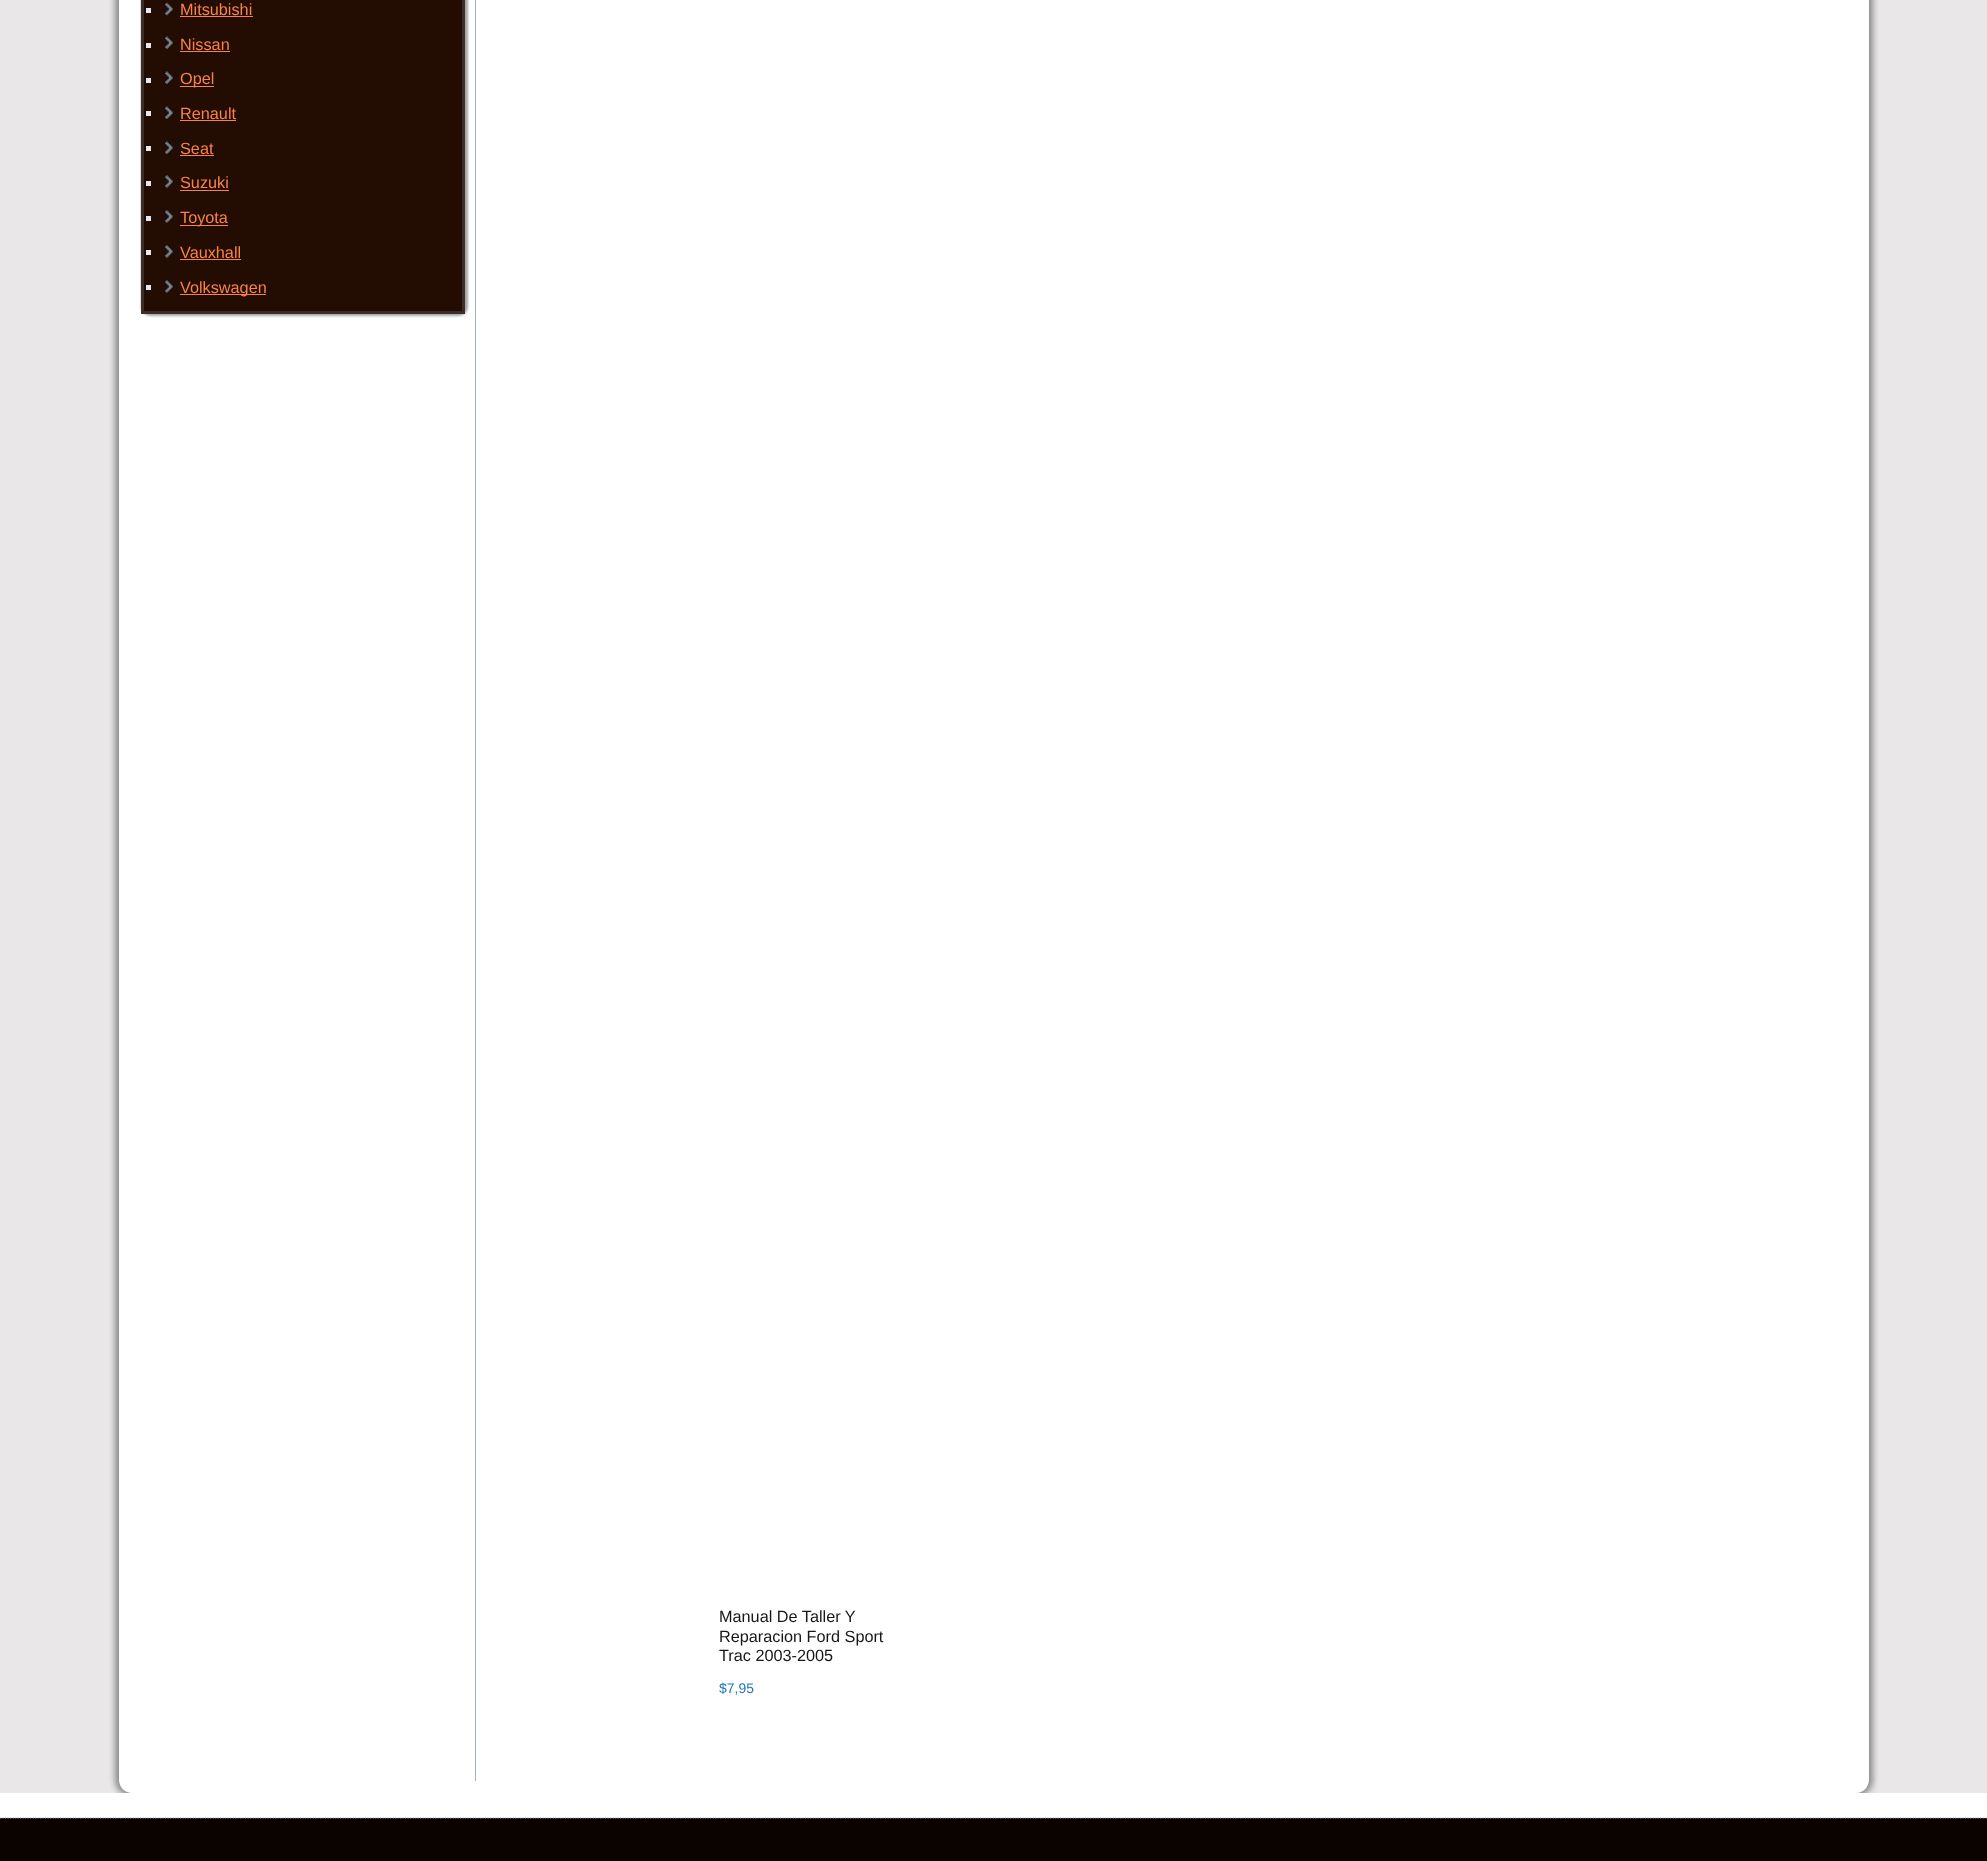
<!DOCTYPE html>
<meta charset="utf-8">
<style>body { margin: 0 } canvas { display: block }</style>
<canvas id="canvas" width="1987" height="1861"></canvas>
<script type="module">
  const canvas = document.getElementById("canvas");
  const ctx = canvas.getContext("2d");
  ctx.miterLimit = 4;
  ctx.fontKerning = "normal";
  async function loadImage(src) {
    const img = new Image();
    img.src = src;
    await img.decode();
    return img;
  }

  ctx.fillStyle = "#ffffff";
  ctx.fillRect(0, 0, 1987, 1861);
  ctx.fillStyle = "#e9e7e7";
  ctx.fillRect(0, 0, 1987, 1793);
  ctx.save();
  ctx.beginPath();
  ctx.rect(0, 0, 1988, 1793);
  ctx.clip();
  ctx.fillStyle = "rgba(0, 0, 0, 0.4)";
  ctx.filter = "blur(3px)";
  ctx.beginPath();
  ctx.roundRect(115, -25, 1758, 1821, 16);
  ctx.fill();
  ctx.filter = "none";
  ctx.restore();
  ctx.fillStyle = "#ffffff";
  ctx.beginPath();
  ctx.moveTo(119, -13);
  ctx.lineTo(1869, -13);
  ctx.lineTo(1869, 1780);
  ctx.bezierCurveTo(1869, 1787, 1863, 1793, 1856, 1793);
  ctx.lineTo(132, 1793);
  ctx.bezierCurveTo(125, 1793, 119, 1787, 119, 1780);
  ctx.closePath();
  ctx.fill();
  ctx.fillStyle = "#a3b4c8";
  ctx.fillRect(475, 0, 1, 1781);
  ctx.fillStyle = "rgba(0, 0, 0, 0.35)";
  ctx.filter = "blur(1px)";
  ctx.beginPath();
  ctx.roundRect(141, -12, 327, 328, 9);
  ctx.fill();
  ctx.filter = "none";
  ctx.fillStyle = "#230c01";
  ctx.beginPath();
  ctx.rect(142.5, -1.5, 321, 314);
  ctx.fill();
  ctx.strokeStyle = "#3b2d28";
  ctx.lineWidth = 3;
  ctx.stroke();
  ctx.fillStyle = "#e6eaf0";
  ctx.fillRect(146, 8, 5, 5);
  ctx.drawImage(await loadImage("img1.png"), 165, 2, 8, 14);
  ctx.font = "16.25px Liberation Sans";
  ctx.fillStyle = "#fb8246";
  ctx.fillText("Mitsubishi", 180, 15);
  ctx.fillRect(180, 16, 73, 1);
  ctx.fillStyle = "#e6eaf0";
  ctx.fillRect(146, 43, 5, 5);
  ctx.drawImage(await loadImage("img2.png"), 165, 36, 8, 13);
  ctx.fillStyle = "#fb8246";
  ctx.fillText("Nissan", 180, 50);
  ctx.fillRect(180, 51, 50, 1);
  ctx.fillStyle = "#e6eaf0";
  ctx.fillRect(146, 78, 5, 5);
  ctx.drawImage(await loadImage("img2.png"), 165, 71, 8, 13);
  ctx.fillStyle = "#fb8246";
  ctx.fillRect(180, 86, 34, 1);
  ctx.fillText("Opel", 180, 84);
  ctx.fillStyle = "#e6eaf0";
  ctx.fillRect(146, 111, 5, 5);
  ctx.drawImage(await loadImage("img2.png"), 165, 106, 8, 13);
  ctx.fillStyle = "#fb8246";
  ctx.fillText("Renault", 180, 119);
  ctx.fillRect(180, 120, 56, 1);
  ctx.fillStyle = "#e6eaf0";
  ctx.fillRect(146, 146, 5, 5);
  ctx.drawImage(await loadImage("img2.png"), 165, 141, 8, 13);
  ctx.fillStyle = "#fb8246";
  ctx.fillText("Seat", 180, 154);
  ctx.fillRect(180, 155, 34, 1);
  ctx.fillStyle = "#e6eaf0";
  ctx.fillRect(146, 181, 5, 5);
  ctx.drawImage(await loadImage("img3.png"), 165, 175, 8, 13);
  ctx.fillStyle = "#fb8246";
  ctx.fillText("Suzuki", 180, 188);
  ctx.fillRect(180, 190, 49, 1);
  ctx.fillStyle = "#e6eaf0";
  ctx.fillRect(146, 216, 5, 5);
  ctx.drawImage(await loadImage("img3.png"), 165, 210, 8, 13);
  ctx.fillStyle = "#fb8246";
  ctx.fillRect(180, 225, 48, 1);
  ctx.fillText("Toyota", 180, 223);
  ctx.fillStyle = "#e6eaf0";
  ctx.fillRect(146, 250, 5, 5);
  ctx.drawImage(await loadImage("img3.png"), 165, 245, 8, 13);
  ctx.fillStyle = "#fb8246";
  ctx.fillText("Vauxhall", 180, 258);
  ctx.fillRect(180, 259, 61, 1);
  ctx.fillStyle = "#e6eaf0";
  ctx.fillRect(146, 285, 5, 5);
  ctx.drawImage(await loadImage("img3.png"), 165, 280, 8, 13);
  ctx.fillStyle = "#fb8246";
  ctx.fillRect(180, 294, 86, 1);
  ctx.fillText("Volkswagen", 180, 293);
  ctx.fillStyle = "#171717";
  ctx.fillText("Manual De Taller Y", 719, 1622);
  ctx.fillText("Reparacion Ford Sport", 719, 1642);
  ctx.fillText("Trac 2003-2005", 719, 1661);
  ctx.font = "14px Liberation Sans";
  ctx.fillStyle = "#1e73be";
  ctx.fillText("$7,95", 719, 1693);
  ctx.fillStyle = "#0a0300";
  ctx.fillRect(0, 1818, 1987, 43);
  ctx.beginPath();
  ctx.moveTo(0, 1818);
  ctx.lineTo(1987.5, 1818);
  ctx.strokeStyle = "#9cafc4";
  ctx.lineWidth = 1.2;
  ctx.setLineDash([1.25, 1.25]);
  ctx.stroke();
</script>
